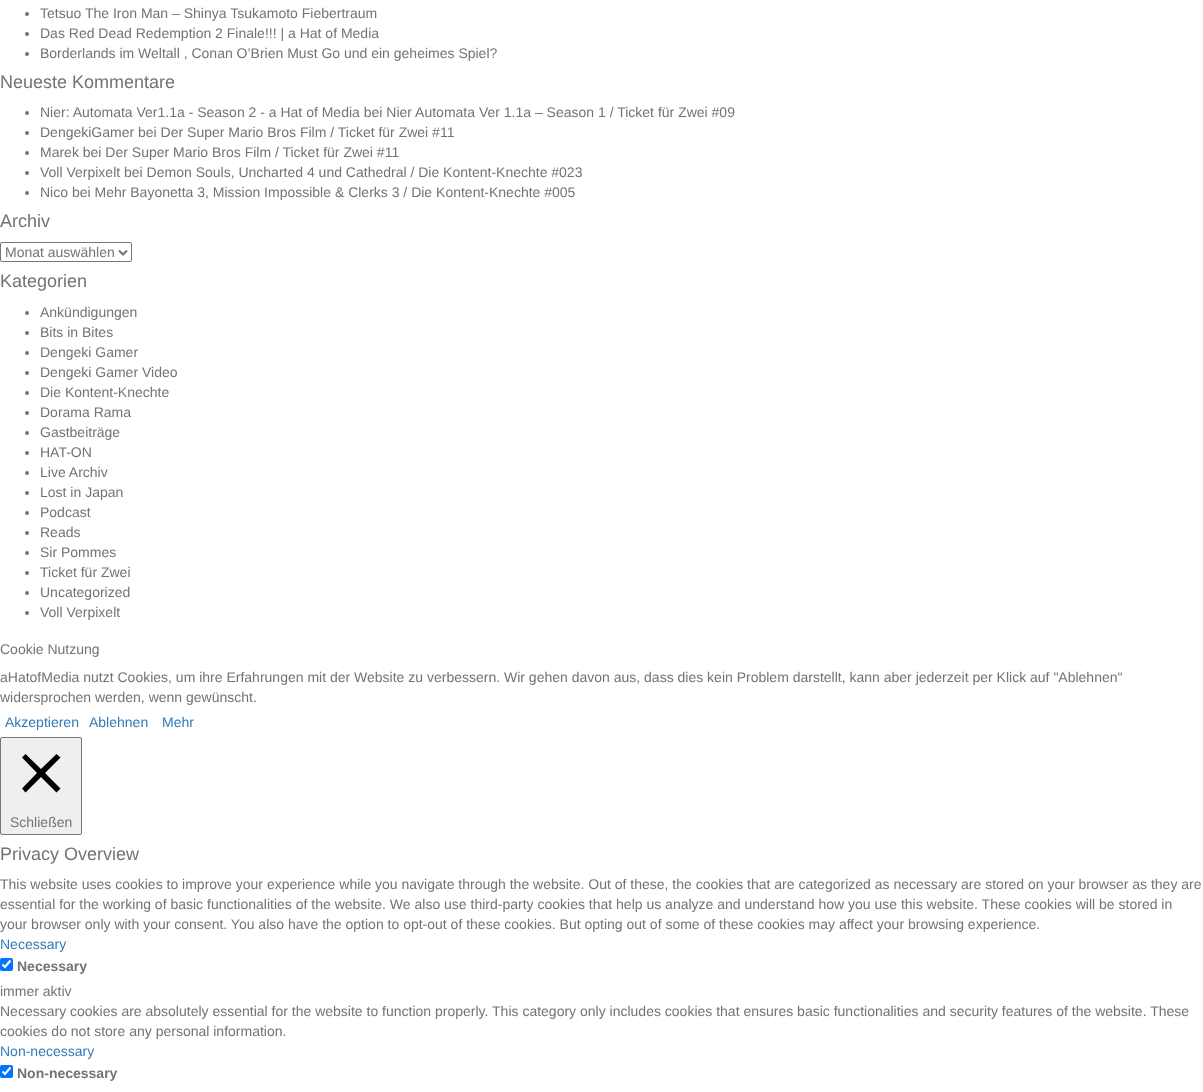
<!DOCTYPE html>
<meta charset="utf-8">
<style>body { margin: 0 } canvas { display: block }</style>
<canvas id="canvas" width="1203" height="1092"></canvas>
<script type="module">
  const canvas = document.getElementById("canvas");
  const ctx = canvas.getContext("2d");
  ctx.miterLimit = 4;
  ctx.fontKerning = "normal";

  ctx.fillStyle = "#ffffff";
  ctx.fillRect(0, 0, 1203, 1092);
  ctx.fillStyle = "#717376";
  ctx.beginPath();
  ctx.arc(27, 14, 2, 0, Math.PI * 2);
  ctx.fill();
  ctx.font = "14px Liberation Sans";
  ctx.fillText("Tetsuo The Iron Man – Shinya Tsukamoto Fiebertraum", 40, 18);
  ctx.beginPath();
  ctx.arc(27, 34, 2, 0, Math.PI * 2);
  ctx.fill();
  ctx.fillText("Das Red Dead Redemption 2 Finale!!! | a Hat of Media", 40, 38);
  ctx.beginPath();
  ctx.arc(27, 54, 2, 0, Math.PI * 2);
  ctx.fill();
  ctx.fillText("Borderlands im Weltall , Conan O’Brien Must Go und ein geheimes Spiel?", 40, 58);
  ctx.font = "18px Liberation Sans";
  ctx.fillText("Neueste Kommentare", 0, 88);
  ctx.beginPath();
  ctx.arc(27, 113, 2, 0, Math.PI * 2);
  ctx.fill();
  ctx.font = "14px Liberation Sans";
  ctx.fillText("Nier: Automata Ver1.1a - Season 2 - a Hat of Media bei Nier Automata Ver 1.1a – Season 1 / Ticket für Zwei #09", 40, 117);
  ctx.beginPath();
  ctx.arc(27, 133, 2, 0, Math.PI * 2);
  ctx.fill();
  ctx.fillText("DengekiGamer bei Der Super Mario Bros Film / Ticket für Zwei #11", 40, 137);
  ctx.beginPath();
  ctx.arc(27, 153, 2, 0, Math.PI * 2);
  ctx.fill();
  ctx.fillText("Marek bei Der Super Mario Bros Film / Ticket für Zwei #11", 40, 157);
  ctx.beginPath();
  ctx.arc(27, 173, 2, 0, Math.PI * 2);
  ctx.fill();
  ctx.fillText("Voll Verpixelt bei Demon Souls, Uncharted 4 und Cathedral / Die Kontent-Knechte #023", 40, 177);
  ctx.beginPath();
  ctx.arc(27, 193, 2, 0, Math.PI * 2);
  ctx.fill();
  ctx.fillText("Nico bei Mehr Bayonetta 3, Mission Impossible & Clerks 3 / Die Kontent-Knechte #005", 40, 197);
  ctx.font = "18px Liberation Sans";
  ctx.fillText("Archiv", 0, 227);
  ctx.beginPath();
  ctx.roundRect(0.5, 242.5, 131, 19, 1.5);
  ctx.strokeStyle = "#767676";
  ctx.stroke();
  ctx.beginPath();
  ctx.moveTo(119, 250.5);
  ctx.lineTo(123, 254.5);
  ctx.lineTo(127, 250.5);
  ctx.strokeStyle = "#717376";
  ctx.lineWidth = 2;
  ctx.stroke();
  ctx.font = "14px Liberation Sans";
  ctx.fillText("Monat auswählen", 5, 257);
  ctx.font = "18px Liberation Sans";
  ctx.fillText("Kategorien", 0, 287);
  ctx.beginPath();
  ctx.arc(27, 313, 2, 0, Math.PI * 2);
  ctx.fill();
  ctx.font = "14px Liberation Sans";
  ctx.fillText("Ankündigungen", 40, 317);
  ctx.beginPath();
  ctx.arc(27, 333, 2, 0, Math.PI * 2);
  ctx.fill();
  ctx.fillText("Bits in Bites", 40, 337);
  ctx.beginPath();
  ctx.arc(27, 353, 2, 0, Math.PI * 2);
  ctx.fill();
  ctx.fillText("Dengeki Gamer", 40, 357);
  ctx.beginPath();
  ctx.arc(27, 373, 2, 0, Math.PI * 2);
  ctx.fill();
  ctx.fillText("Dengeki Gamer Video", 40, 377);
  ctx.beginPath();
  ctx.arc(27, 393, 2, 0, Math.PI * 2);
  ctx.fill();
  ctx.fillText("Die Kontent-Knechte", 40, 397);
  ctx.beginPath();
  ctx.arc(27, 413, 2, 0, Math.PI * 2);
  ctx.fill();
  ctx.fillText("Dorama Rama", 40, 417);
  ctx.beginPath();
  ctx.arc(27, 433, 2, 0, Math.PI * 2);
  ctx.fill();
  ctx.fillText("Gastbeiträge", 40, 437);
  ctx.beginPath();
  ctx.arc(27, 453, 2, 0, Math.PI * 2);
  ctx.fill();
  ctx.fillText("HAT-ON", 40, 457);
  ctx.beginPath();
  ctx.arc(27, 473, 2, 0, Math.PI * 2);
  ctx.fill();
  ctx.fillText("Live Archiv", 40, 477);
  ctx.beginPath();
  ctx.arc(27, 493, 2, 0, Math.PI * 2);
  ctx.fill();
  ctx.fillText("Lost in Japan", 40, 497);
  ctx.beginPath();
  ctx.arc(27, 513, 2, 0, Math.PI * 2);
  ctx.fill();
  ctx.fillText("Podcast", 40, 517);
  ctx.beginPath();
  ctx.arc(27, 533, 2, 0, Math.PI * 2);
  ctx.fill();
  ctx.fillText("Reads", 40, 537);
  ctx.beginPath();
  ctx.arc(27, 553, 2, 0, Math.PI * 2);
  ctx.fill();
  ctx.fillText("Sir Pommes", 40, 557);
  ctx.beginPath();
  ctx.arc(27, 573, 2, 0, Math.PI * 2);
  ctx.fill();
  ctx.fillText("Ticket für Zwei", 40, 577);
  ctx.beginPath();
  ctx.arc(27, 593, 2, 0, Math.PI * 2);
  ctx.fill();
  ctx.fillText("Uncategorized", 40, 597);
  ctx.beginPath();
  ctx.arc(27, 613, 2, 0, Math.PI * 2);
  ctx.fill();
  ctx.fillText("Voll Verpixelt", 40, 617);
  ctx.fillText("Cookie Nutzung", 0, 654);
  ctx.fillText("aHatofMedia nutzt Cookies, um ihre Erfahrungen mit der Website zu verbessern. Wir gehen davon aus, dass dies kein Problem darstellt, kann aber jederzeit per Klick auf \"Ablehnen\"", 0, 682);
  ctx.fillText("widersprochen werden, wenn gewünscht.", 0, 702);
  ctx.fillStyle = "#337ab7";
  ctx.fillText("Akzeptieren", 5, 727);
  ctx.fillText("Ablehnen", 89, 727);
  ctx.fillText("Mehr", 162, 727);
  ctx.fillStyle = "#efefef";
  ctx.beginPath();
  ctx.roundRect(0.5, 737.5, 81, 97, 1.5);
  ctx.fill();
  ctx.strokeStyle = "#767676";
  ctx.lineWidth = 1;
  ctx.stroke();
  ctx.fillStyle = "#000000";
  ctx.beginPath();
  ctx.moveTo(60.5, 757.5);
  ctx.lineTo(56.5, 754);
  ctx.lineTo(41, 769);
  ctx.lineTo(25.5, 754);
  ctx.lineTo(22, 757.5);
  ctx.lineTo(37, 773);
  ctx.lineTo(22, 788.5);
  ctx.lineTo(25.5, 792.5);
  ctx.lineTo(41, 777);
  ctx.lineTo(56.5, 792.5);
  ctx.lineTo(60.5, 788.5);
  ctx.lineTo(45, 773);
  ctx.closePath();
  ctx.fill();
  ctx.fillStyle = "#717376";
  ctx.fillText("Schließen", 10, 827);
  ctx.font = "18px Liberation Sans";
  ctx.fillText("Privacy Overview", 0, 860);
  ctx.font = "14px Liberation Sans";
  ctx.fillText("This website uses cookies to improve your experience while you navigate through the website. Out of these, the cookies that are categorized as necessary are stored on your browser as they are", 0, 889);
  ctx.fillText("essential for the working of basic functionalities of the website. We also use third-party cookies that help us analyze and understand how you use this website. These cookies will be stored in", 0, 909);
  ctx.fillText("your browser only with your consent. You also have the option to opt-out of these cookies. But opting out of some of these cookies may affect your browsing experience.", 0, 929);
  ctx.fillStyle = "#337ab7";
  ctx.fillText("Necessary", 0, 949);
  ctx.fillStyle = "#0075ff";
  ctx.beginPath();
  ctx.roundRect(0, 958, 13, 13, 2);
  ctx.fill();
  ctx.beginPath();
  ctx.moveTo(2.5, 964.5);
  ctx.lineTo(5, 967);
  ctx.lineTo(10.5, 960.5);
  ctx.strokeStyle = "#ffffff";
  ctx.lineWidth = 2.1;
  ctx.stroke();
  ctx.font = "bold 14px Liberation Sans";
  ctx.fillStyle = "#717376";
  ctx.fillText("Necessary", 17, 971);
  ctx.font = "14px Liberation Sans";
  ctx.fillText("immer aktiv", 0, 996);
  ctx.fillText("Necessary cookies are absolutely essential for the website to function properly. This category only includes cookies that ensures basic functionalities and security features of the website. These", 0, 1016);
  ctx.fillText("cookies do not store any personal information.", 0, 1036);
  ctx.fillStyle = "#337ab7";
  ctx.fillText("Non-necessary", 0, 1056);
  ctx.fillStyle = "#0075ff";
  ctx.beginPath();
  ctx.roundRect(0, 1065, 13, 13, 2);
  ctx.fill();
  ctx.beginPath();
  ctx.moveTo(2.5, 1071.5);
  ctx.lineTo(5, 1074);
  ctx.lineTo(10.5, 1067.5);
  ctx.stroke();
  ctx.font = "bold 14px Liberation Sans";
  ctx.fillStyle = "#717376";
  ctx.fillText("Non-necessary", 17, 1078);
</script>
